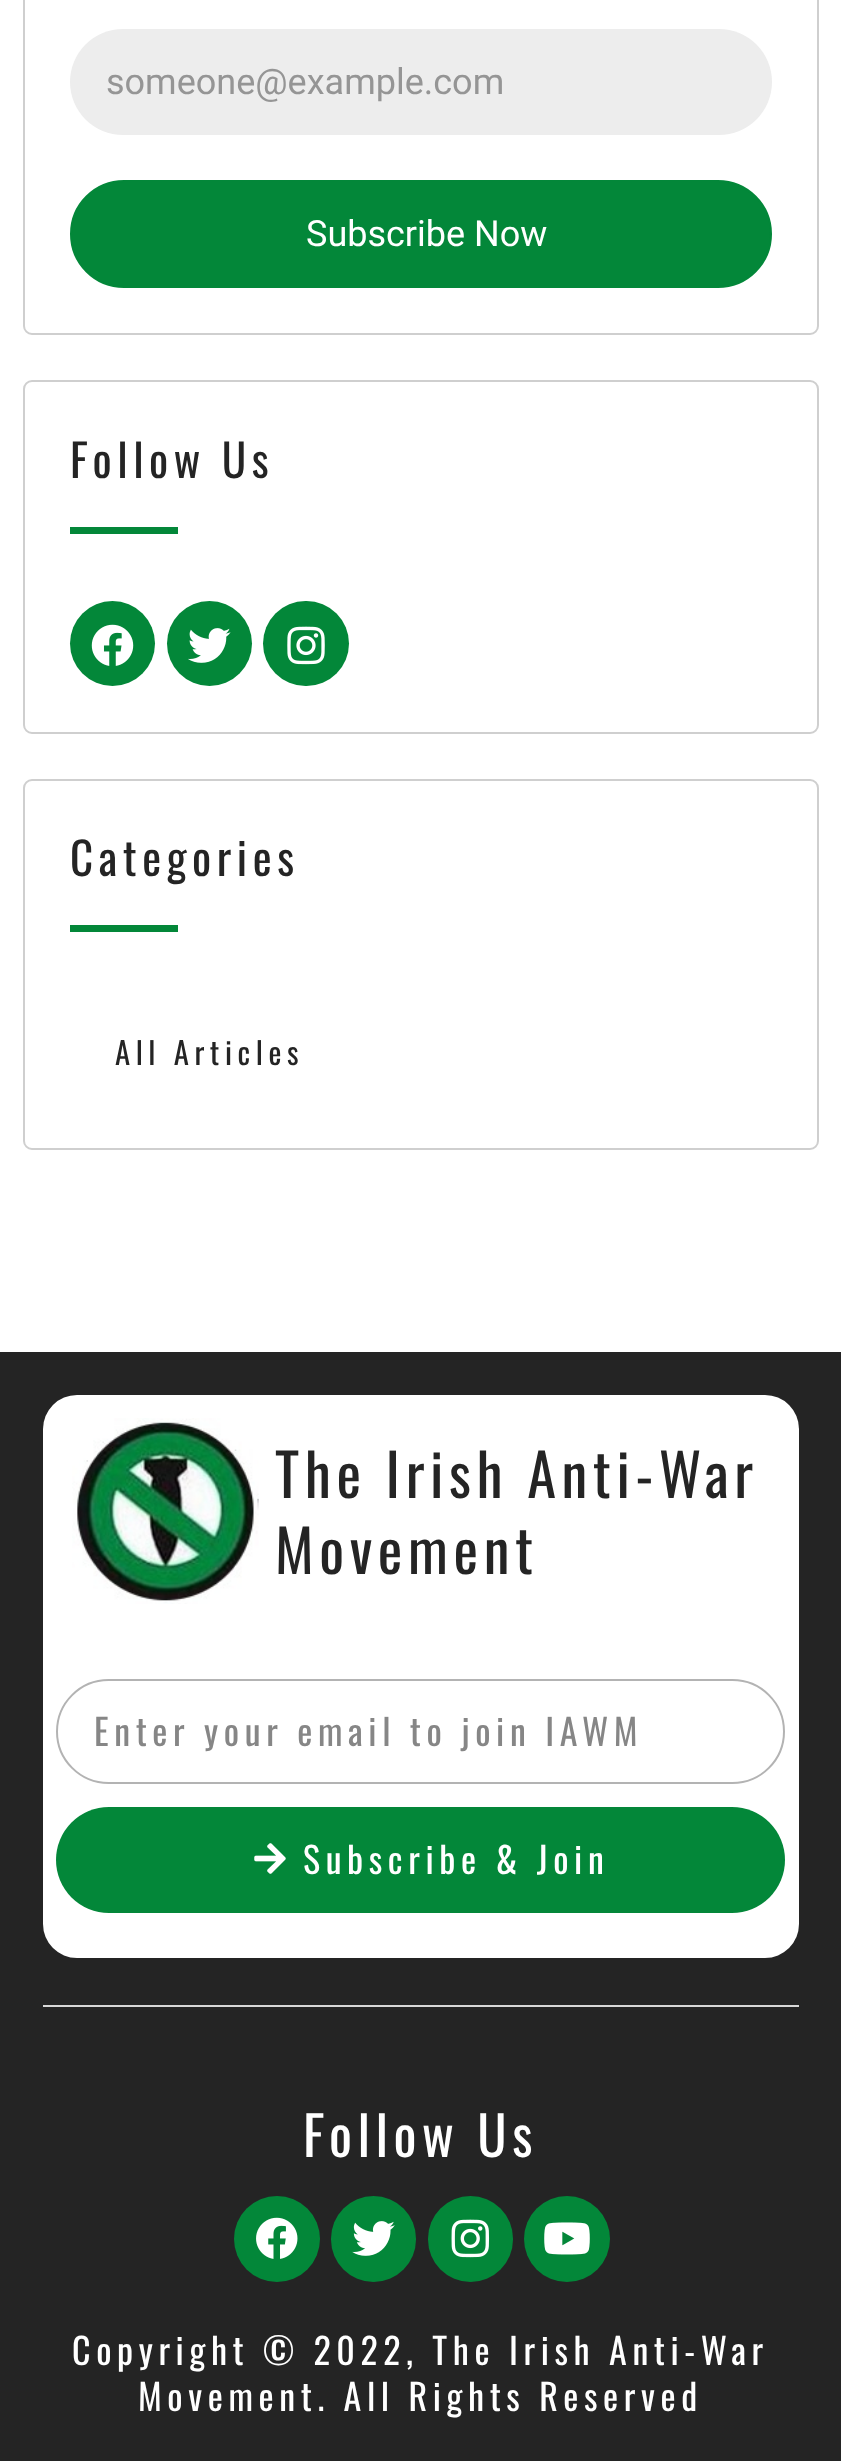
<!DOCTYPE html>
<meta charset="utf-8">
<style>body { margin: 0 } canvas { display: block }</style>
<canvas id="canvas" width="841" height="2461"></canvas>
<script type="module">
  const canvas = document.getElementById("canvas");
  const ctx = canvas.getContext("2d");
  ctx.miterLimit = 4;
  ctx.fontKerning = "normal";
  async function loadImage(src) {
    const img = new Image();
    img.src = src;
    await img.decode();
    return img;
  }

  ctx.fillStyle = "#ffffff";
  ctx.fillRect(0, 0, 841, 2461);
  ctx.beginPath();
  ctx.roundRect(24, -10, 794, 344, 8);
  ctx.strokeStyle = "#cfcfcf";
  ctx.lineWidth = 2;
  ctx.stroke();
  ctx.fillStyle = "#ededed";
  ctx.beginPath();
  ctx.roundRect(70, 29, 702, 106, 53);
  ctx.fill();
  ctx.font = "36px Roboto";
  ctx.fillStyle = "#959595";
  ctx.fillText("someone@example.com", 106, 94);
  ctx.fillStyle = "#038739";
  ctx.beginPath();
  ctx.roundRect(71, 181, 700, 106, 53);
  ctx.fill();
  ctx.strokeStyle = "#038739";
  ctx.stroke();
  ctx.fillStyle = "#ffffff";
  ctx.fillText("Subscribe Now", 306, 246);
  ctx.beginPath();
  ctx.roundRect(24, 381, 794, 352, 8);
  ctx.strokeStyle = "#cfcfcf";
  ctx.stroke();
  ctx.letterSpacing = "5.6px";
  ctx.font = "45px Oswald";
  ctx.fillStyle = "#242424";
  ctx.fillText("Follow Us", 70, 478);
  ctx.fillStyle = "#038739";
  ctx.fillRect(70, 527, 108, 7);
  ctx.beginPath();
  ctx.arc(112.5, 643.5, 42.5, 0, Math.PI * 2);
  ctx.fill();
  ctx.drawImage(await loadImage("img1.png"), 91, 624, 43, 42);
  ctx.beginPath();
  ctx.arc(209.5, 643.5, 42.5, 0, Math.PI * 2);
  ctx.fill();
  ctx.drawImage(await loadImage("img2.png"), 188, 628, 43, 35);
  ctx.beginPath();
  ctx.roundRect(263, 601, 86, 85, 42.5);
  ctx.fill();
  ctx.drawImage(await loadImage("img3.png"), 287, 626, 38, 39);
  ctx.beginPath();
  ctx.roundRect(24, 780, 794, 369, 8);
  ctx.stroke();
  ctx.fillStyle = "#242424";
  ctx.fillText("Categories", 70, 876);
  ctx.fillStyle = "#038739";
  ctx.fillRect(70, 925, 108, 7);
  ctx.font = "30.75px Oswald";
  ctx.fillStyle = "#242424";
  ctx.fillText("All Articles", 115, 1065);
  ctx.fillRect(0, 1352, 841, 1109);
  ctx.fillStyle = "#ffffff";
  ctx.beginPath();
  ctx.roundRect(43, 1395, 756, 563, 34);
  ctx.fill();
  ctx.drawImage(await loadImage("img4.png"), 72, 1418, 187, 186);
  ctx.font = "58.5px Oswald";
  ctx.fillStyle = "#242424";
  ctx.fillText("The Irish Anti-War", 275, 1498);
  ctx.fillText("Movement", 275, 1574);
  ctx.beginPath();
  ctx.roundRect(57, 1680, 727, 103, 51.5);
  ctx.strokeStyle = "#b3b3b3";
  ctx.stroke();
  ctx.font = "36px Oswald";
  ctx.fillStyle = "#868686";
  ctx.fillText("Enter your email to join IAWM", 94, 1746);
  ctx.fillStyle = "#038739";
  ctx.beginPath();
  ctx.roundRect(56, 1807, 729, 106, 53);
  ctx.fill();
  ctx.drawImage(await loadImage("img5.png"), 254, 1843, 32, 31);
  ctx.fillStyle = "#ffffff";
  ctx.fillText("Subscribe & Join", 303, 1874);
  ctx.fillStyle = "#d8d8d8";
  ctx.fillRect(43, 2005, 756, 2);
  ctx.font = "54px Oswald";
  ctx.fillStyle = "#ffffff";
  ctx.fillText("Follow Us", 303, 2157);
  ctx.fillStyle = "#038739";
  ctx.beginPath();
  ctx.arc(277, 2239, 43, 0, Math.PI * 2);
  ctx.fill();
  ctx.drawImage(await loadImage("img6.png"), 256, 2217, 42, 42);
  ctx.beginPath();
  ctx.roundRect(331, 2196, 85, 86, 42.5);
  ctx.fill();
  ctx.drawImage(await loadImage("img7.png"), 352, 2221, 43, 35);
  ctx.beginPath();
  ctx.roundRect(428, 2196, 85, 86, 42.5);
  ctx.fill();
  ctx.drawImage(await loadImage("img8.png"), 451, 2219, 39, 39);
  ctx.beginPath();
  ctx.arc(567, 2239, 43, 0, Math.PI * 2);
  ctx.fill();
  ctx.drawImage(await loadImage("img9.png"), 544, 2222, 46, 33);
  ctx.font = "36px Oswald";
  ctx.fillStyle = "#ffffff";
  ctx.fillText("Copyright © 2022, The Irish Anti-War", 72, 2365);
  ctx.fillText("Movement. All Rights Reserved", 138, 2411);
</script>
